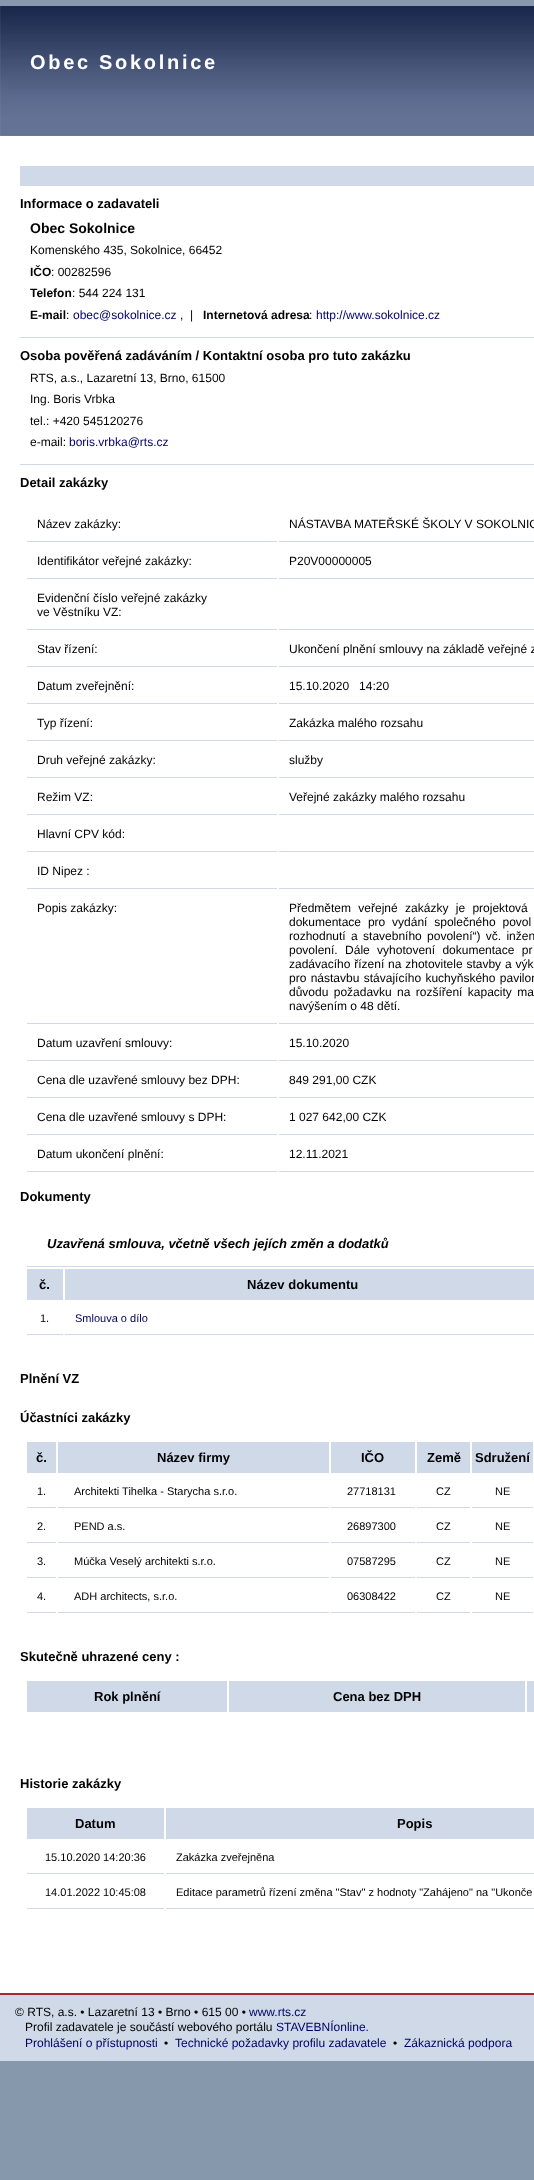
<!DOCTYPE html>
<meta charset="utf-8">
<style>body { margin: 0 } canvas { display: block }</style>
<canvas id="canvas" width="534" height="2180"></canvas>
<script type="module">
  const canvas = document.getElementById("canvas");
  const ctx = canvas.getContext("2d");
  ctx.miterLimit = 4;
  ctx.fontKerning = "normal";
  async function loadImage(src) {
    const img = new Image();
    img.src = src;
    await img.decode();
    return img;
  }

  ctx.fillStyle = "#8598ac";
  ctx.fillRect(0, 0, 534, 2180);
  ctx.fillStyle = "#ffffff";
  ctx.fillRect(0, 136, 534, 1857);
  ctx.drawImage(await loadImage("img1.png"), 0, 6, 534, 130);
  ctx.letterSpacing = "2.7px";
  ctx.font = "bold 20px Liberation Sans";
  ctx.fillText("Obec Sokolnice", 30, 69);
  ctx.fillStyle = "#cfd9e8";
  ctx.fillRect(20, 166, 514, 20);
  ctx.letterSpacing = "0px";
  ctx.font = "bold 13px Liberation Sans";
  ctx.fillStyle = "#000000";
  ctx.fillText("Informace o zadavateli", 20, 208);
  ctx.font = "bold 14px Liberation Sans";
  ctx.fillText("Obec Sokolnice", 30, 233);
  ctx.font = "12px Liberation Sans";
  ctx.fillText("Komenského 435, Sokolnice, 66452", 30, 254);
  ctx.font = "bold 12px Liberation Sans";
  ctx.fillText("IČO", 30, 276);
  ctx.font = "12px Liberation Sans";
  ctx.fillText(": 00282596", 51, 276);
  ctx.font = "bold 12px Liberation Sans";
  ctx.fillText("Telefon", 30, 297);
  ctx.font = "12px Liberation Sans";
  ctx.fillText(": 544 224 131", 72, 297);
  ctx.font = "bold 12px Liberation Sans";
  ctx.fillText("E-mail", 30, 319);
  ctx.font = "12px Liberation Sans";
  ctx.fillText(":", 66, 319);
  ctx.fillStyle = "#000066";
  ctx.fillText("obec@sokolnice.cz", 73, 319);
  ctx.fillStyle = "#000000";
  ctx.fillText(",  |", 180, 319);
  ctx.font = "bold 12px Liberation Sans";
  ctx.fillText("Internetová adresa", 203, 319);
  ctx.font = "12px Liberation Sans";
  ctx.fillText(":", 309, 319);
  ctx.fillStyle = "#000066";
  ctx.fillText("http://www.sokolnice.cz", 316, 319);
  ctx.fillStyle = "#cfd9e8";
  ctx.fillRect(20, 337, 514, 1);
  ctx.font = "bold 13px Liberation Sans";
  ctx.fillStyle = "#000000";
  ctx.fillText("Osoba pověřená zadáváním / Kontaktní osoba pro tuto zakázku", 20, 360);
  ctx.font = "12px Liberation Sans";
  ctx.fillText("RTS, a.s., Lazaretní 13, Brno, 61500", 30, 382);
  ctx.fillText("Ing. Boris Vrbka", 30, 403);
  ctx.fillText("tel.: +420 545120276", 30, 425);
  ctx.fillText("e-mail:", 30, 446);
  ctx.fillStyle = "#000066";
  ctx.fillText("boris.vrbka@rts.cz", 69, 446);
  ctx.fillStyle = "#cfd9e8";
  ctx.fillRect(20, 464, 514, 1);
  ctx.font = "bold 13px Liberation Sans";
  ctx.fillStyle = "#000000";
  ctx.fillText("Detail zakázky", 20, 487);
  ctx.fillStyle = "#cfd9e8";
  ctx.fillRect(27, 541, 250, 1);
  ctx.font = "12px Liberation Sans";
  ctx.fillStyle = "#000000";
  ctx.fillText("Název zakázky:", 37, 528);
  ctx.fillStyle = "#cfd9e8";
  ctx.fillRect(279, 541, 255, 1);
  ctx.fillStyle = "#000000";
  ctx.fillText("NÁSTAVBA MATEŘSKÉ ŠKOLY V SOKOLNIC", 289, 528);
  ctx.fillStyle = "#cfd9e8";
  ctx.fillRect(27, 578, 250, 1);
  ctx.fillStyle = "#000000";
  ctx.fillText("Identifikátor veřejné zakázky:", 37, 565);
  ctx.fillStyle = "#cfd9e8";
  ctx.fillRect(279, 578, 255, 1);
  ctx.fillStyle = "#000000";
  ctx.fillText("P20V00000005", 289, 565);
  ctx.fillStyle = "#cfd9e8";
  ctx.fillRect(27, 629, 250, 1);
  ctx.fillStyle = "#000000";
  ctx.fillText("Evidenční číslo veřejné zakázky", 37, 602);
  ctx.fillText("ve Věstníku VZ:", 37, 616);
  ctx.fillStyle = "#cfd9e8";
  ctx.fillRect(279, 629, 255, 1);
  ctx.fillRect(27, 666, 250, 1);
  ctx.fillStyle = "#000000";
  ctx.fillText("Stav řízení:", 37, 653);
  ctx.fillStyle = "#cfd9e8";
  ctx.fillRect(279, 666, 255, 1);
  ctx.fillStyle = "#000000";
  ctx.fillText("Ukončení plnění smlouvy na základě veřejné z", 289, 653);
  ctx.fillStyle = "#cfd9e8";
  ctx.fillRect(27, 703, 250, 1);
  ctx.fillStyle = "#000000";
  ctx.fillText("Datum zveřejnění:", 37, 690);
  ctx.fillStyle = "#cfd9e8";
  ctx.fillRect(279, 703, 255, 1);
  ctx.fillStyle = "#000000";
  ctx.fillText("15.10.2020   14:20", 289, 690);
  ctx.fillStyle = "#cfd9e8";
  ctx.fillRect(27, 740, 250, 1);
  ctx.fillStyle = "#000000";
  ctx.fillText("Typ řízení:", 37, 727);
  ctx.fillStyle = "#cfd9e8";
  ctx.fillRect(279, 740, 255, 1);
  ctx.fillStyle = "#000000";
  ctx.fillText("Zakázka malého rozsahu", 289, 727);
  ctx.fillStyle = "#cfd9e8";
  ctx.fillRect(27, 777, 250, 1);
  ctx.fillStyle = "#000000";
  ctx.fillText("Druh veřejné zakázky:", 37, 764);
  ctx.fillStyle = "#cfd9e8";
  ctx.fillRect(279, 777, 255, 1);
  ctx.fillStyle = "#000000";
  ctx.fillText("služby", 289, 764);
  ctx.fillStyle = "#cfd9e8";
  ctx.fillRect(27, 814, 250, 1);
  ctx.fillStyle = "#000000";
  ctx.fillText("Režim VZ:", 37, 801);
  ctx.fillStyle = "#cfd9e8";
  ctx.fillRect(279, 814, 255, 1);
  ctx.fillStyle = "#000000";
  ctx.fillText("Veřejné zakázky malého rozsahu", 289, 801);
  ctx.fillStyle = "#cfd9e8";
  ctx.fillRect(27, 851, 250, 1);
  ctx.fillStyle = "#000000";
  ctx.fillText("Hlavní CPV kód:", 37, 838);
  ctx.fillStyle = "#cfd9e8";
  ctx.fillRect(279, 851, 255, 1);
  ctx.fillRect(27, 888, 250, 1);
  ctx.fillStyle = "#000000";
  ctx.fillText("ID Nipez :", 37, 875);
  ctx.fillStyle = "#cfd9e8";
  ctx.fillRect(279, 888, 255, 1);
  ctx.fillRect(27, 1023, 250, 1);
  ctx.fillStyle = "#000000";
  ctx.fillText("Popis zakázky:", 37, 912);
  ctx.fillStyle = "#cfd9e8";
  ctx.fillRect(279, 1023, 255, 1);
  ctx.wordSpacing = "4px";
  ctx.fillStyle = "#000000";
  ctx.fillText("Předmětem veřejné zakázky je projektová", 289, 912);
  ctx.wordSpacing = "3.5px";
  ctx.fillText("dokumentace pro vydání společného povol", 289, 926);
  ctx.wordSpacing = "2px";
  ctx.fillText("rozhodnutí a stavebního povolení“) vč. inžen", 289, 940);
  ctx.wordSpacing = "4px";
  ctx.fillText("povolení. Dále vyhotovení dokumentace pr", 289, 954);
  ctx.wordSpacing = "0.5px";
  ctx.fillText("zadávacího řízení na zhotovitele stavby a výk", 289, 968);
  ctx.wordSpacing = "1px";
  ctx.fillText("pro nástavbu stávajícího kuchyňského pavilon", 289, 982);
  ctx.wordSpacing = "2px";
  ctx.fillText("důvodu požadavku na rozšíření kapacity ma", 289, 996);
  ctx.wordSpacing = "0px";
  ctx.fillText("navýšením o 48 dětí.", 289, 1010);
  ctx.fillStyle = "#cfd9e8";
  ctx.fillRect(27, 1060, 250, 1);
  ctx.fillStyle = "#000000";
  ctx.fillText("Datum uzavření smlouvy:", 37, 1047);
  ctx.fillStyle = "#cfd9e8";
  ctx.fillRect(279, 1060, 255, 1);
  ctx.fillStyle = "#000000";
  ctx.fillText("15.10.2020", 289, 1047);
  ctx.fillStyle = "#cfd9e8";
  ctx.fillRect(27, 1097, 250, 1);
  ctx.fillStyle = "#000000";
  ctx.fillText("Cena dle uzavřené smlouvy bez DPH:", 37, 1084);
  ctx.fillStyle = "#cfd9e8";
  ctx.fillRect(279, 1097, 255, 1);
  ctx.fillStyle = "#000000";
  ctx.fillText("849 291,00 CZK", 289, 1084);
  ctx.fillStyle = "#cfd9e8";
  ctx.fillRect(27, 1134, 250, 1);
  ctx.fillStyle = "#000000";
  ctx.fillText("Cena dle uzavřené smlouvy s DPH:", 37, 1121);
  ctx.fillStyle = "#cfd9e8";
  ctx.fillRect(279, 1134, 255, 1);
  ctx.fillStyle = "#000000";
  ctx.fillText("1 027 642,00 CZK", 289, 1121);
  ctx.fillStyle = "#cfd9e8";
  ctx.fillRect(27, 1171, 250, 1);
  ctx.fillStyle = "#000000";
  ctx.fillText("Datum ukončení plnění:", 37, 1158);
  ctx.fillStyle = "#cfd9e8";
  ctx.fillRect(279, 1171, 255, 1);
  ctx.fillStyle = "#000000";
  ctx.fillText("12.11.2021", 289, 1158);
  ctx.font = "bold 13px Liberation Sans";
  ctx.fillText("Dokumenty", 20, 1201);
  ctx.fillStyle = "#cfd9e8";
  ctx.fillRect(27, 1266, 507, 1);
  ctx.font = "italic bold 13px Liberation Sans";
  ctx.fillStyle = "#000000";
  ctx.fillText("Uzavřená smlouva, včetně všech jejích změn a dodatků", 47, 1248);
  ctx.fillStyle = "#cfd9e8";
  ctx.fillRect(27, 1269, 36, 31);
  ctx.font = "bold 13px Liberation Sans";
  ctx.fillStyle = "#000000";
  ctx.fillText("č.", 39, 1289);
  ctx.fillStyle = "#cfd9e8";
  ctx.fillRect(65, 1269, 469, 31);
  ctx.fillStyle = "#000000";
  ctx.fillText("Název dokumentu", 247, 1289);
  ctx.fillStyle = "#cfd9e8";
  ctx.fillRect(27, 1334, 36, 1);
  ctx.font = "11px Liberation Sans";
  ctx.fillStyle = "#000000";
  ctx.fillText("1.", 40, 1322);
  ctx.fillStyle = "#cfd9e8";
  ctx.fillRect(65, 1334, 469, 1);
  ctx.fillStyle = "#000066";
  ctx.fillText("Smlouva o dílo", 75, 1322);
  ctx.font = "bold 13px Liberation Sans";
  ctx.fillStyle = "#000000";
  ctx.fillText("Plnění VZ", 20, 1383);
  ctx.fillText("Účastníci zakázky", 20, 1422);
  ctx.fillStyle = "#cfd9e8";
  ctx.fillRect(27, 1442, 29, 31);
  ctx.fillStyle = "#000000";
  ctx.fillText("č.", 36, 1462);
  ctx.fillStyle = "#cfd9e8";
  ctx.fillRect(58, 1442, 271, 31);
  ctx.fillStyle = "#000000";
  ctx.fillText("Název firmy", 157, 1462);
  ctx.fillStyle = "#cfd9e8";
  ctx.fillRect(331, 1442, 84, 31);
  ctx.fillStyle = "#000000";
  ctx.fillText("IČO", 361, 1462);
  ctx.fillStyle = "#cfd9e8";
  ctx.fillRect(417, 1442, 53, 31);
  ctx.fillStyle = "#000000";
  ctx.fillText("Země", 427, 1462);
  ctx.fillStyle = "#cfd9e8";
  ctx.fillRect(472, 1442, 61, 31);
  ctx.fillStyle = "#000000";
  ctx.fillText("Sdružení", 475, 1462);
  ctx.fillStyle = "#cfd9e8";
  ctx.fillRect(27, 1507, 29, 1);
  ctx.font = "11px Liberation Sans";
  ctx.fillStyle = "#000000";
  ctx.fillText("1.", 37, 1495);
  ctx.fillStyle = "#cfd9e8";
  ctx.fillRect(58, 1507, 271, 1);
  ctx.fillStyle = "#000000";
  ctx.fillText("Architekti Tihelka - Starycha s.r.o.", 74, 1495);
  ctx.fillStyle = "#cfd9e8";
  ctx.fillRect(331, 1507, 84, 1);
  ctx.fillStyle = "#000000";
  ctx.fillText("27718131", 347, 1495);
  ctx.fillStyle = "#cfd9e8";
  ctx.fillRect(417, 1507, 53, 1);
  ctx.fillStyle = "#000000";
  ctx.fillText("CZ", 436, 1495);
  ctx.fillStyle = "#cfd9e8";
  ctx.fillRect(472, 1507, 61, 1);
  ctx.fillStyle = "#000000";
  ctx.fillText("NE", 495, 1495);
  ctx.fillStyle = "#cfd9e8";
  ctx.fillRect(27, 1542, 29, 1);
  ctx.fillStyle = "#000000";
  ctx.fillText("2.", 37, 1530);
  ctx.fillStyle = "#cfd9e8";
  ctx.fillRect(58, 1542, 271, 1);
  ctx.fillStyle = "#000000";
  ctx.fillText("PEND a.s.", 74, 1530);
  ctx.fillStyle = "#cfd9e8";
  ctx.fillRect(331, 1542, 84, 1);
  ctx.fillStyle = "#000000";
  ctx.fillText("26897300", 347, 1530);
  ctx.fillStyle = "#cfd9e8";
  ctx.fillRect(417, 1542, 53, 1);
  ctx.fillStyle = "#000000";
  ctx.fillText("CZ", 436, 1530);
  ctx.fillStyle = "#cfd9e8";
  ctx.fillRect(472, 1542, 61, 1);
  ctx.fillStyle = "#000000";
  ctx.fillText("NE", 495, 1530);
  ctx.fillStyle = "#cfd9e8";
  ctx.fillRect(27, 1577, 29, 1);
  ctx.fillStyle = "#000000";
  ctx.fillText("3.", 37, 1565);
  ctx.fillStyle = "#cfd9e8";
  ctx.fillRect(58, 1577, 271, 1);
  ctx.fillStyle = "#000000";
  ctx.fillText("Múčka Veselý architekti s.r.o.", 74, 1565);
  ctx.fillStyle = "#cfd9e8";
  ctx.fillRect(331, 1577, 84, 1);
  ctx.fillStyle = "#000000";
  ctx.fillText("07587295", 347, 1565);
  ctx.fillStyle = "#cfd9e8";
  ctx.fillRect(417, 1577, 53, 1);
  ctx.fillStyle = "#000000";
  ctx.fillText("CZ", 436, 1565);
  ctx.fillStyle = "#cfd9e8";
  ctx.fillRect(472, 1577, 61, 1);
  ctx.fillStyle = "#000000";
  ctx.fillText("NE", 495, 1565);
  ctx.fillStyle = "#cfd9e8";
  ctx.fillRect(27, 1612, 29, 1);
  ctx.fillStyle = "#000000";
  ctx.fillText("4.", 37, 1600);
  ctx.fillStyle = "#cfd9e8";
  ctx.fillRect(58, 1612, 271, 1);
  ctx.fillStyle = "#000000";
  ctx.fillText("ADH architects, s.r.o.", 74, 1600);
  ctx.fillStyle = "#cfd9e8";
  ctx.fillRect(331, 1612, 84, 1);
  ctx.fillStyle = "#000000";
  ctx.fillText("06308422", 347, 1600);
  ctx.fillStyle = "#cfd9e8";
  ctx.fillRect(417, 1612, 53, 1);
  ctx.fillStyle = "#000000";
  ctx.fillText("CZ", 436, 1600);
  ctx.fillStyle = "#cfd9e8";
  ctx.fillRect(472, 1612, 61, 1);
  ctx.fillStyle = "#000000";
  ctx.fillText("NE", 495, 1600);
  ctx.font = "bold 13px Liberation Sans";
  ctx.fillText("Skutečně uhrazené ceny :", 20, 1661);
  ctx.fillStyle = "#cfd9e8";
  ctx.fillRect(27, 1681, 200, 31);
  ctx.fillStyle = "#000000";
  ctx.fillText("Rok plnění", 94, 1701);
  ctx.fillStyle = "#cfd9e8";
  ctx.fillRect(229, 1681, 296, 31);
  ctx.fillStyle = "#000000";
  ctx.fillText("Cena bez DPH", 333, 1701);
  ctx.fillStyle = "#cfd9e8";
  ctx.fillRect(527, 1681, 7, 31);
  ctx.fillStyle = "#000000";
  ctx.fillText("Historie zakázky", 20, 1788);
  ctx.fillStyle = "#cfd9e8";
  ctx.fillRect(27, 1808, 137, 31);
  ctx.fillStyle = "#000000";
  ctx.fillText("Datum", 75, 1828);
  ctx.fillStyle = "#cfd9e8";
  ctx.fillRect(166, 1808, 368, 31);
  ctx.fillStyle = "#000000";
  ctx.fillText("Popis", 397, 1828);
  ctx.fillStyle = "#cfd9e8";
  ctx.fillRect(27, 1873, 137, 1);
  ctx.font = "11px Liberation Sans";
  ctx.fillStyle = "#000000";
  ctx.fillText("15.10.2020 14:20:36", 45, 1861);
  ctx.fillStyle = "#cfd9e8";
  ctx.fillRect(166, 1873, 368, 1);
  ctx.fillStyle = "#000000";
  ctx.fillText("Zakázka zveřejněna", 176, 1861);
  ctx.fillStyle = "#cfd9e8";
  ctx.fillRect(27, 1908, 137, 1);
  ctx.fillStyle = "#000000";
  ctx.fillText("14.01.2022 10:45:08", 45, 1896);
  ctx.fillStyle = "#cfd9e8";
  ctx.fillRect(166, 1908, 368, 1);
  ctx.fillStyle = "#000000";
  ctx.fillText("Editace parametrů řízení změna \"Stav\" z hodnoty \"Zahájeno\" na \"Ukonče", 176, 1896);
  ctx.fillStyle = "#cfd9e8";
  ctx.fillRect(0, 1995, 534, 66);
  ctx.fillStyle = "#a52a2a";
  ctx.fillRect(0, 1993, 534, 2);
  ctx.font = "12px Liberation Sans";
  ctx.fillStyle = "#000000";
  ctx.fillText("© RTS, a.s. • Lazaretní 13 • Brno • 615 00 •", 15, 2016);
  ctx.fillStyle = "#000066";
  ctx.fillText("www.rts.cz", 249, 2016);
  ctx.fillStyle = "#000000";
  ctx.fillText("Profil zadavatele je součástí webového portálu", 25, 2031);
  ctx.fillStyle = "#000066";
  ctx.fillText("STAVEBNÍonline.", 276, 2031);
  ctx.fillText("Prohlášení o přístupnosti", 25, 2047);
  ctx.fillStyle = "#000000";
  ctx.fillText("•", 164, 2047);
  ctx.fillStyle = "#000066";
  ctx.fillText("Technické požadavky profilu zadavatele", 175, 2047);
  ctx.fillStyle = "#000000";
  ctx.fillText("•", 393, 2047);
  ctx.fillStyle = "#000066";
  ctx.fillText("Zákaznická podpora", 404, 2047);
</script>
